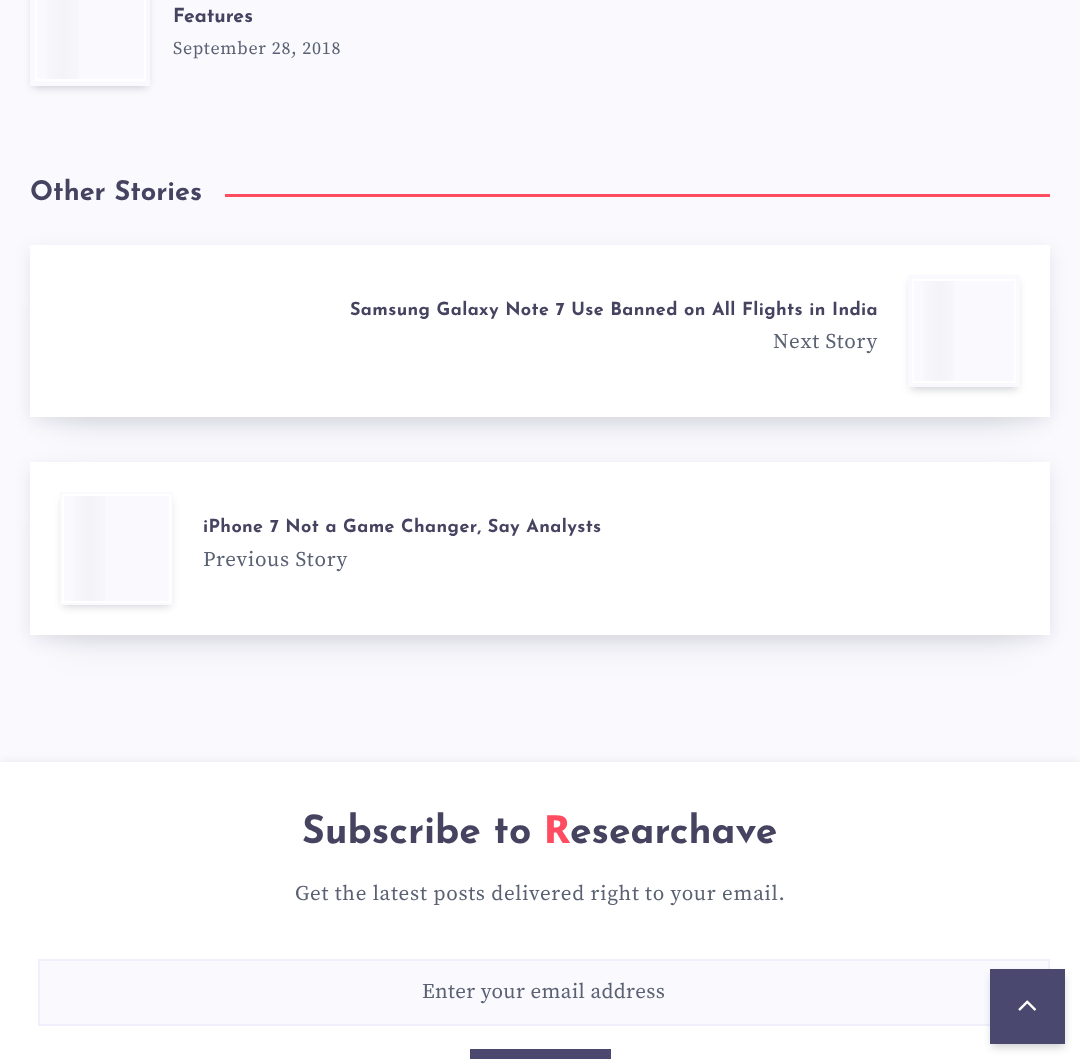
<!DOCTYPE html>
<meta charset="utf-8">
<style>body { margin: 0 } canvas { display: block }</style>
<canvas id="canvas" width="1080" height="1059"></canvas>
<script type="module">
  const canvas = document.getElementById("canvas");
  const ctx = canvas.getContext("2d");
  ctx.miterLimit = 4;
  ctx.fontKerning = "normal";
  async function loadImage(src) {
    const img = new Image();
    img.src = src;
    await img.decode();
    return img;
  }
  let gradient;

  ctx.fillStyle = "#f9f9fe";
  ctx.fillRect(0, 0, 1080, 1059);
  ctx.fillStyle = "rgba(7, 10, 25, 0.2)";
  ctx.filter = "blur(4px)";
  ctx.beginPath();
  ctx.rect(33, -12, 114, 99);
  ctx.fill();
  ctx.filter = "none";
  ctx.fillStyle = "#f9f9fe";
  ctx.fillRect(30, 0, 120, 86);
  gradient = ctx.createLinearGradient(36, 22, 90, 22);
  gradient.addColorStop(0, "#f9f9fe");
  gradient.addColorStop(0.5, "#f3f3f8");
  gradient.addColorStop(1, "#f9f9fe");
  ctx.fillStyle = gradient;
  ctx.fillRect(47, 0, 32, 79);
  ctx.strokeStyle = "#ffffff";
  ctx.lineWidth = 2;
  ctx.strokeRect(36, -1, 109, 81);
  ctx.font = "bold 19.5px Josefin Sans";
  ctx.fillStyle = "#454360";
  ctx.fillText("Features", 173, 22);
  ctx.letterSpacing = "0.75px";
  ctx.font = "18px Source Serif Pro";
  ctx.fillStyle = "#596172";
  ctx.fillText("September 28, 2018", 173, 54);
  ctx.letterSpacing = "0px";
  ctx.font = "bold 27px Josefin Sans";
  ctx.fillStyle = "#454360";
  ctx.fillText("Other Stories", 30, 200);
  ctx.fillStyle = "#ff4c60";
  ctx.fillRect(225, 194, 825, 3);
  ctx.fillStyle = "rgba(7, 10, 25, 0.1)";
  ctx.filter = "blur(20px)";
  ctx.beginPath();
  ctx.rect(60, 308, 960, 112);
  ctx.fill();
  ctx.filter = "none";
  ctx.filter = "blur(9px)";
  ctx.beginPath();
  ctx.rect(32, 251, 1017, 169);
  ctx.fill();
  ctx.filter = "none";
  ctx.fillStyle = "#ffffff";
  ctx.fillRect(30, 245, 1020, 172);
  ctx.letterSpacing = "0.38px";
  ctx.font = "bold 18px Josefin Sans";
  ctx.fillStyle = "#454360";
  ctx.fillText("Samsung Galaxy Note 7 Use Banned on All Flights in India", 350, 315);
  ctx.letterSpacing = "0.75px";
  ctx.font = "21px Source Serif Pro";
  ctx.fillStyle = "#596172";
  ctx.fillText("Next Story", 773, 348);
  ctx.fillStyle = "rgba(7, 10, 25, 0.2)";
  ctx.filter = "blur(4px)";
  ctx.beginPath();
  ctx.rect(911, 282, 106, 107);
  ctx.fill();
  ctx.filter = "none";
  ctx.fillStyle = "#f9f9fe";
  ctx.fillRect(908, 275, 112, 112);
  gradient = ctx.createLinearGradient(914, 331, 964, 331);
  gradient.addColorStop(0, "#f9f9fe");
  gradient.addColorStop(0.5, "#f3f3f8");
  gradient.addColorStop(1, "#f9f9fe");
  ctx.fillStyle = gradient;
  ctx.fillRect(924, 281, 30, 100);
  ctx.strokeRect(913, 280, 102, 102);
  ctx.fillStyle = "rgba(7, 10, 25, 0.1)";
  ctx.filter = "blur(20px)";
  ctx.beginPath();
  ctx.rect(60, 525, 960, 113);
  ctx.fill();
  ctx.filter = "none";
  ctx.filter = "blur(9px)";
  ctx.beginPath();
  ctx.rect(32, 468, 1017, 170);
  ctx.fill();
  ctx.filter = "none";
  ctx.fillStyle = "#ffffff";
  ctx.fillRect(30, 462, 1020, 173);
  ctx.fillStyle = "rgba(7, 10, 25, 0.2)";
  ctx.filter = "blur(4px)";
  ctx.beginPath();
  ctx.rect(63, 500, 107, 106);
  ctx.fill();
  ctx.filter = "none";
  ctx.fillStyle = "#f9f9fe";
  ctx.fillRect(60, 492, 113, 113);
  gradient = ctx.createLinearGradient(63, 548, 116, 548);
  gradient.addColorStop(0, "#f9f9fe");
  gradient.addColorStop(0.5, "#f3f3f8");
  gradient.addColorStop(1, "#f9f9fe");
  ctx.fillStyle = gradient;
  ctx.fillRect(74, 496, 31, 105);
  ctx.strokeRect(63, 495, 107, 107);
  ctx.letterSpacing = "0.38px";
  ctx.font = "bold 18px Josefin Sans";
  ctx.fillStyle = "#454360";
  ctx.fillText("iPhone 7 Not a Game Changer, Say Analysts", 203, 532);
  ctx.letterSpacing = "0.75px";
  ctx.font = "21px Source Serif Pro";
  ctx.fillStyle = "#596172";
  ctx.fillText("Previous Story", 203, 566);
  ctx.fillStyle = "rgba(0, 0, 0, 0.07)";
  ctx.filter = "blur(5px)";
  ctx.beginPath();
  ctx.rect(0, 762, 1080, 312);
  ctx.fill();
  ctx.filter = "none";
  ctx.fillStyle = "#ffffff";
  ctx.fillRect(0, 762, 1080, 297);
  ctx.letterSpacing = "0px";
  ctx.font = "bold 39px Josefin Sans";
  ctx.fillStyle = "#454360";
  ctx.fillText("Subscribe to", 302, 843);
  ctx.font = "800 39px Noto Sans";
  ctx.fillStyle = "#ff4c60";
  ctx.fillText("R", 544, 843);
  ctx.font = "bold 39px Josefin Sans";
  ctx.fillStyle = "#454360";
  ctx.fillText("esearchave", 570, 843);
  ctx.letterSpacing = "0.75px";
  ctx.font = "21px Source Serif Pro";
  ctx.fillStyle = "#596172";
  ctx.fillText("Get the latest posts delivered right to your email.", 295, 900);
  ctx.fillStyle = "#f9f9fe";
  ctx.beginPath();
  ctx.rect(39, 960, 1010, 65);
  ctx.fill();
  ctx.strokeStyle = "#f0f0fd";
  ctx.stroke();
  ctx.letterSpacing = "0.38px";
  ctx.fillStyle = "#596172";
  ctx.fillText("Enter your email address", 422, 998);
  ctx.fillStyle = "#4b4870";
  ctx.fillRect(470, 1049, 141, 10);
  ctx.fillStyle = "rgba(7, 10, 25, 0.2)";
  ctx.filter = "blur(4px)";
  ctx.beginPath();
  ctx.rect(992, 975, 72, 72);
  ctx.fill();
  ctx.filter = "none";
  ctx.fillStyle = "#4b4870";
  ctx.fillRect(990, 969, 75, 75);
  ctx.drawImage(await loadImage("img1.png"), 1018, 1000, 19, 11);
</script>
